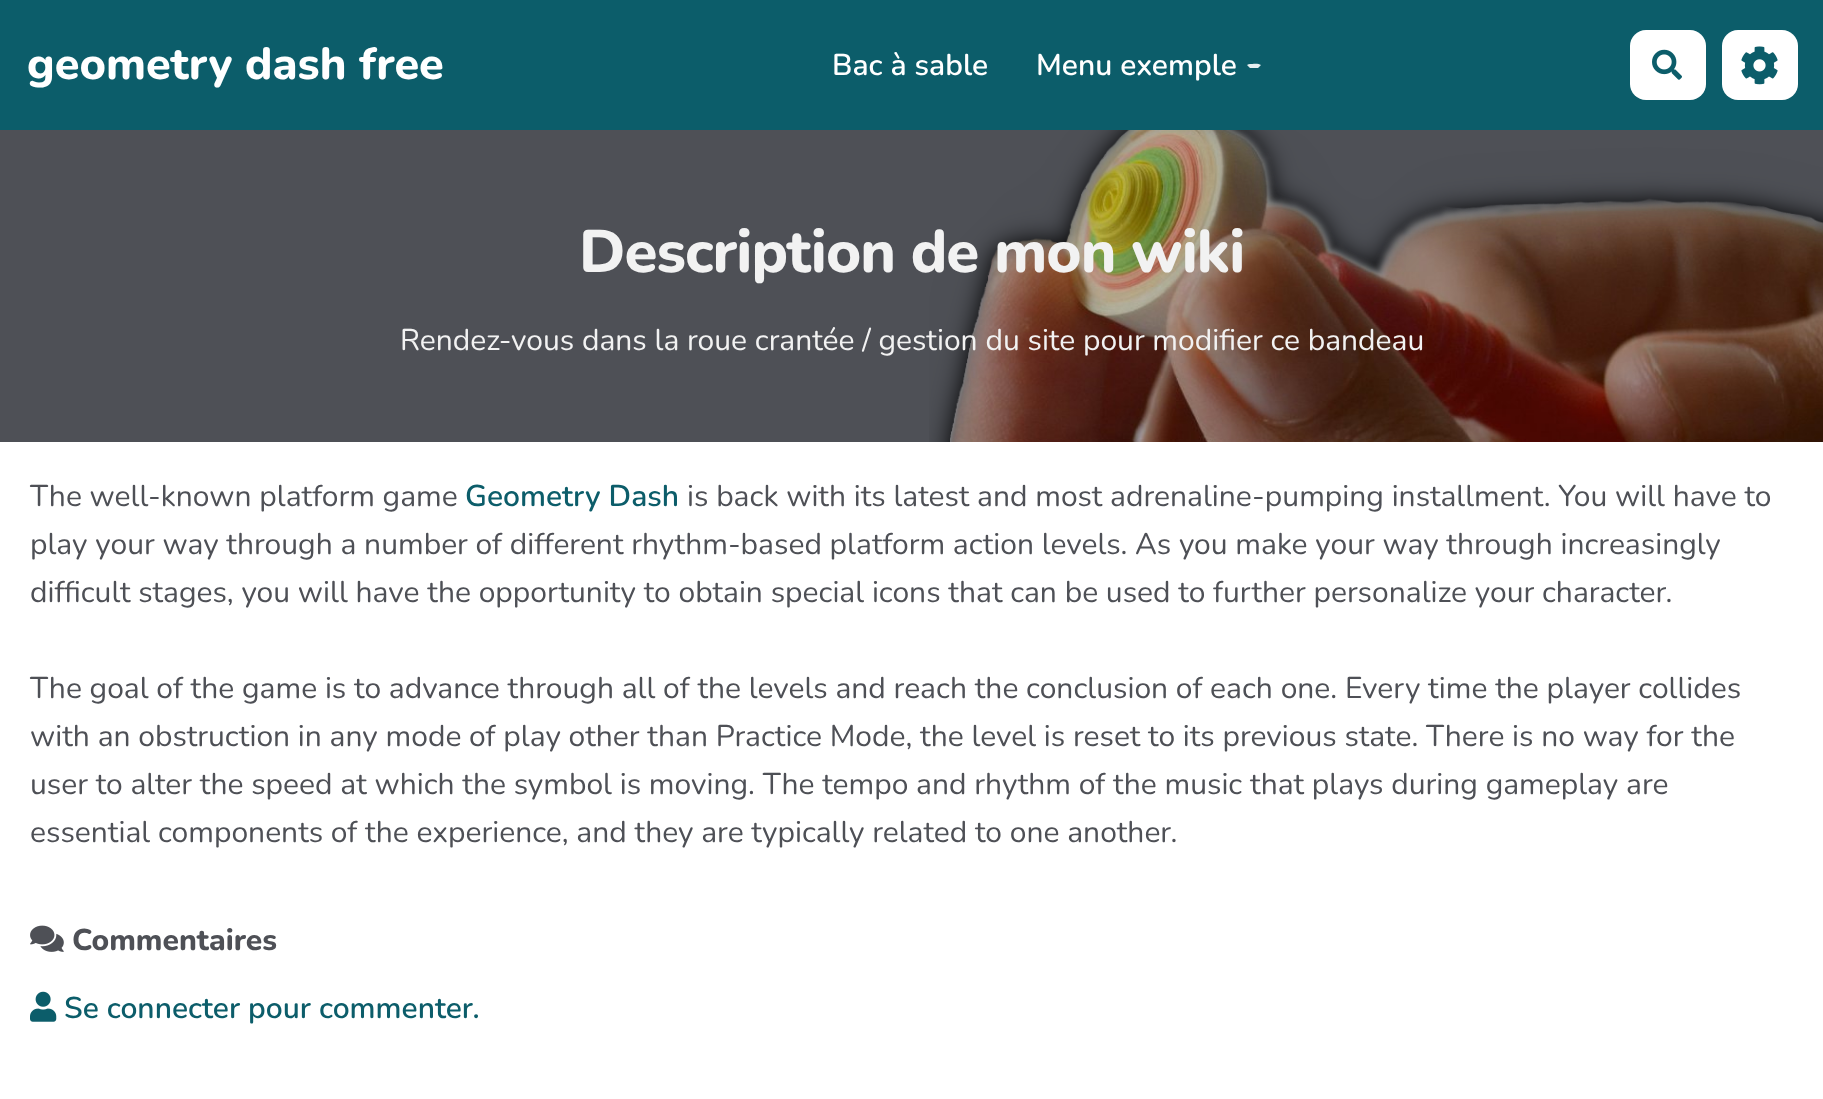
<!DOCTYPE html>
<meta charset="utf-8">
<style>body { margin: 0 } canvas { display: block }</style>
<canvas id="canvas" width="1823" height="1099"></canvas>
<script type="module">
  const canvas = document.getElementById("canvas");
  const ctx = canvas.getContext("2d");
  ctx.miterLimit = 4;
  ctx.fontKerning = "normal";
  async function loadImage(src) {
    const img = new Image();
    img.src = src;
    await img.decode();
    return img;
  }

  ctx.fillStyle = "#ffffff";
  ctx.fillRect(0, 0, 1823, 1099);
  ctx.fillStyle = "#0c5d6a";
  ctx.fillRect(0, 0, 1823, 130);
  ctx.font = "800 45px Nunito";
  ctx.fillStyle = "#ffffff";
  ctx.fillText("geometry dash free", 27, 79);
  ctx.font = "600 30px Nunito";
  ctx.fillText("Bac à sable", 832, 75);
  ctx.fillText("Menu exemple", 1036, 75);
  ctx.fillStyle = "#e7eff0";
  ctx.beginPath();
  ctx.moveTo(1250, 64);
  ctx.bezierCurveTo(1252.5, 64, 1258.5, 63, 1261, 65);
  ctx.lineTo(1258, 68);
  ctx.lineTo(1250, 68);
  ctx.lineTo(1247, 65);
  ctx.bezierCurveTo(1248, 64.5, 1249, 64, 1250, 64);
  ctx.closePath();
  ctx.fill();
  ctx.fillStyle = "#ffffff";
  ctx.beginPath();
  ctx.roundRect(1630, 30, 76, 70, 16);
  ctx.fill();
  ctx.drawImage(await loadImage("img1.png"), 1652, 49, 30, 31);
  ctx.beginPath();
  ctx.roundRect(1722, 30, 76, 70, 16);
  ctx.fill();
  ctx.drawImage(await loadImage("img2.png"), 1741, 46, 37, 39);
  ctx.fillStyle = "#4e5056";
  ctx.fillRect(0, 130, 1823, 312);
  ctx.drawImage(await loadImage("img3.png"), 929, 130, 894, 312);
  ctx.letterSpacing = "-1px";
  ctx.font = "800 60px Nunito";
  ctx.fillStyle = "#f2f2f2";
  ctx.fillText("Description de mon wiki", 579, 272);
  ctx.letterSpacing = "0px";
  ctx.font = "30px Nunito";
  ctx.fillText("Rendez-vous dans la roue crantée / gestion du site pour modifier ce bandeau", 400, 350);
  ctx.fillStyle = "#4e5056";
  ctx.fillText("The well-known platform game", 30, 506);
  ctx.font = "600 30px Nunito";
  ctx.fillStyle = "#0c5d6a";
  ctx.fillText("Geometry Dash", 465, 506);
  ctx.font = "30px Nunito";
  ctx.fillStyle = "#4e5056";
  ctx.fillText("is back with its latest and most adrenaline-pumping installment. You will have to", 687, 506);
  ctx.fillText("play your way through a number of different rhythm-based platform action levels. As you make your way through increasingly", 30, 554);
  ctx.fillText("difficult stages, you will have the opportunity to obtain special icons that can be used to further personalize your character.", 30, 602);
  ctx.fillText("The goal of the game is to advance through all of the levels and reach the conclusion of each one. Every time the player collides", 30, 698);
  ctx.fillText("with an obstruction in any mode of play other than Practice Mode, the level is reset to its previous state. There is no way for the", 30, 746);
  ctx.fillText("user to alter the speed at which the symbol is moving. The tempo and rhythm of the music that plays during gameplay are", 30, 794);
  ctx.fillText("essential components of the experience, and they are typically related to one another.", 30, 842);
  ctx.drawImage(await loadImage("img4.png"), 30, 925, 34, 27);
  ctx.font = "800 30px Nunito";
  ctx.fillText("Commentaires", 72, 950);
  ctx.drawImage(await loadImage("img5.png"), 30, 991, 27, 31);
  ctx.font = "600 30px Nunito";
  ctx.fillStyle = "#0c5d6a";
  ctx.fillText("Se connecter pour commenter.", 64, 1018);
</script>
